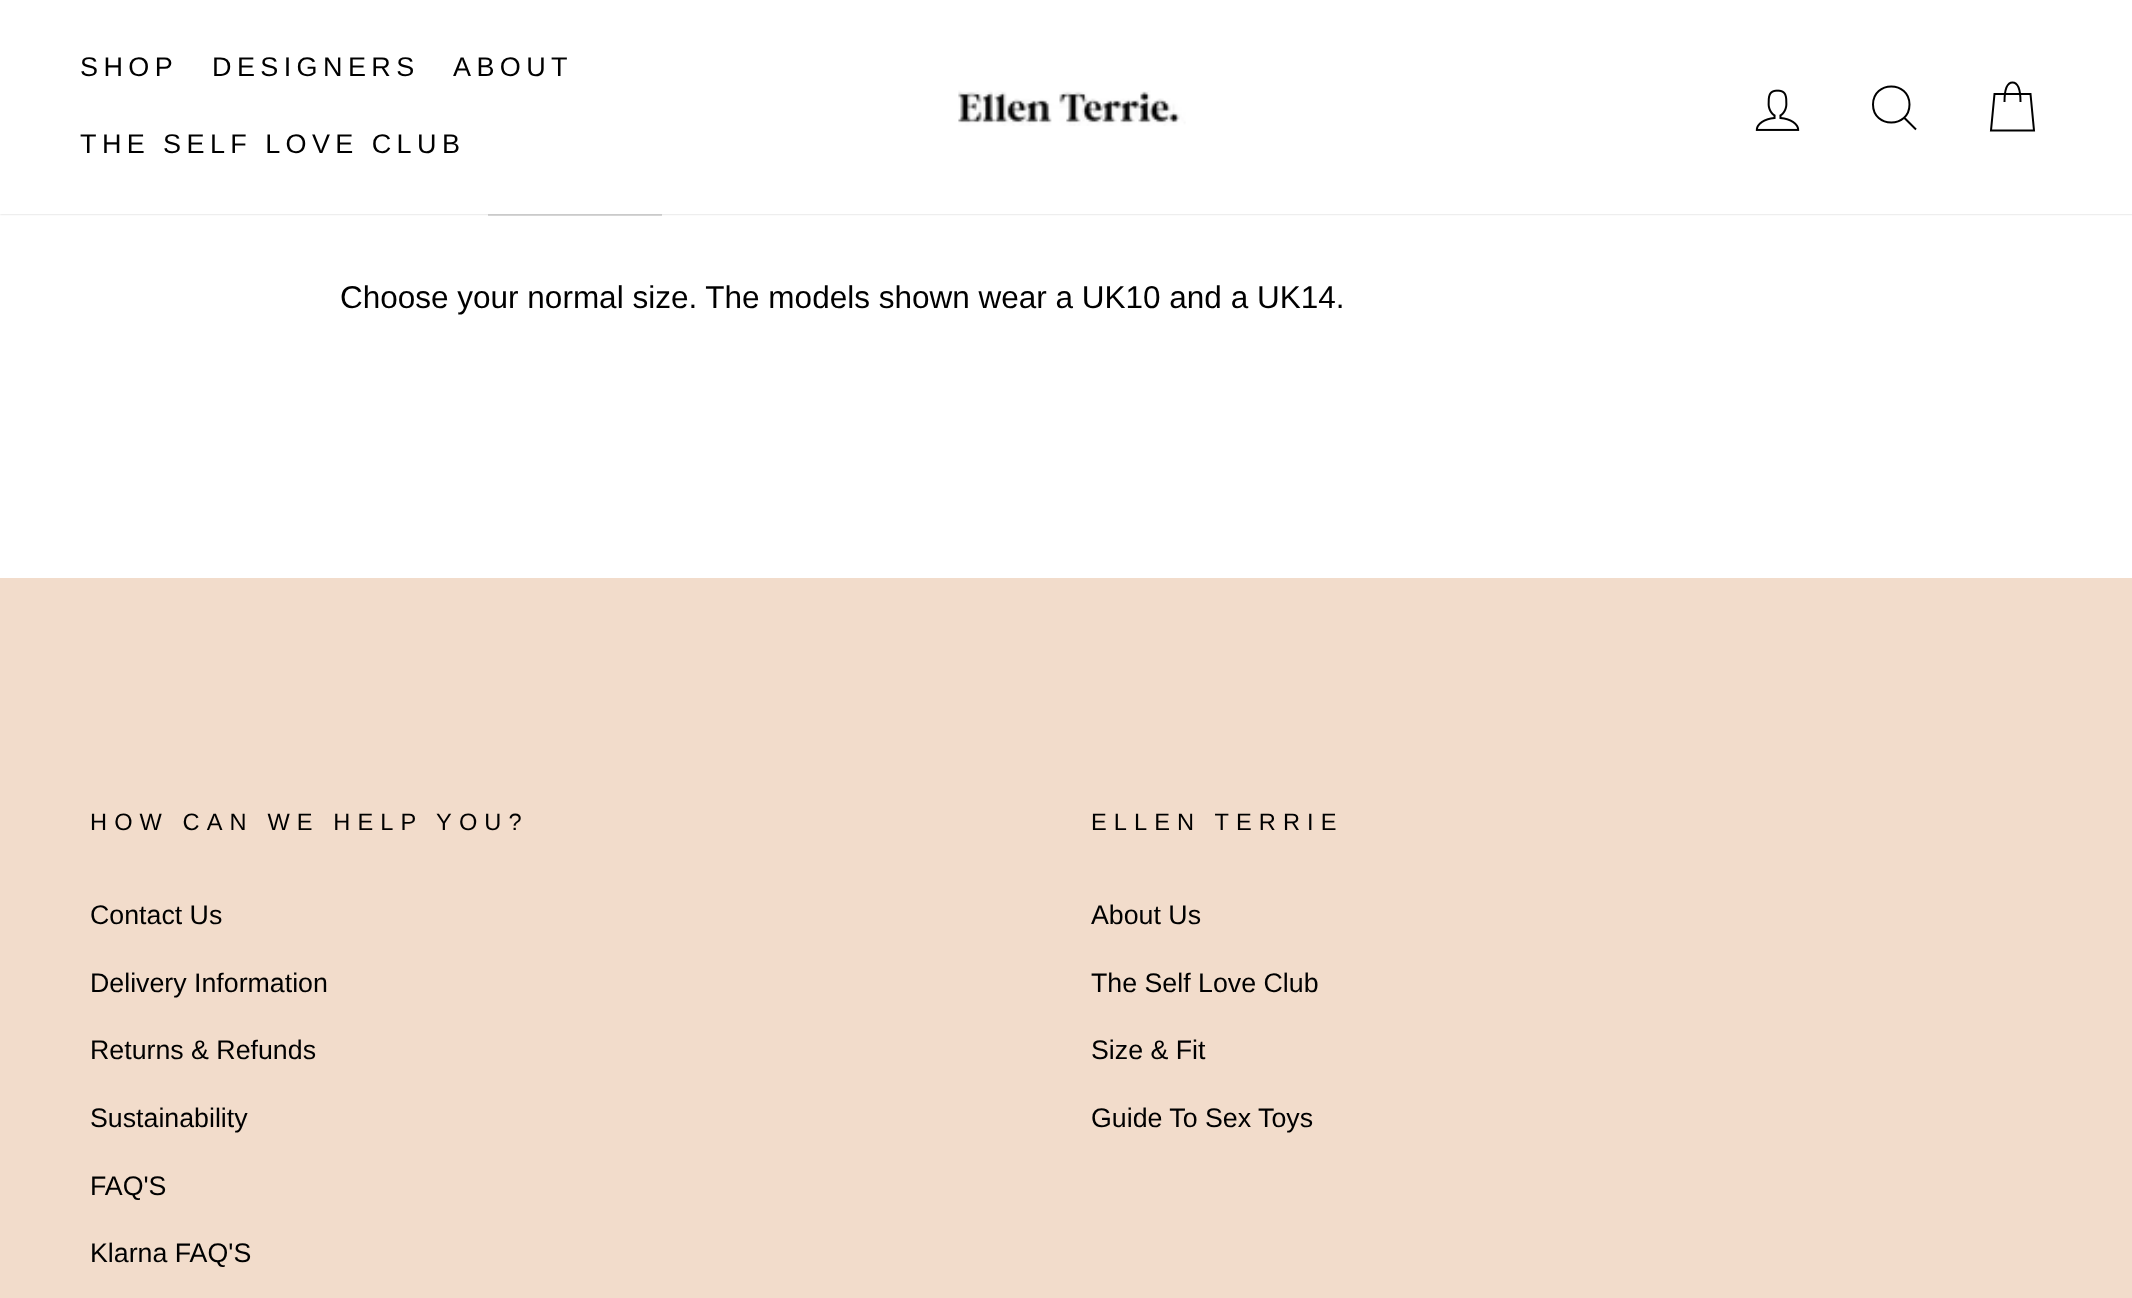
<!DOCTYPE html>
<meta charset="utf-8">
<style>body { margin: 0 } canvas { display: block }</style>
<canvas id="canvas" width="2132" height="1298"></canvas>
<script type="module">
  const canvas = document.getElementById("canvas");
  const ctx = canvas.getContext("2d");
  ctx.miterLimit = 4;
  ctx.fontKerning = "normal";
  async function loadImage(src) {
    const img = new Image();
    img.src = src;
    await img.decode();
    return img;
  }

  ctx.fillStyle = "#ffffff";
  ctx.fillRect(0, 0, 2132, 1298);
  ctx.fillStyle = "#d9d9d9";
  ctx.fillRect(488, 214, 174, 2);
  ctx.fillStyle = "rgba(0, 0, 0, 0.2)";
  ctx.filter = "blur(1px)";
  ctx.beginPath();
  ctx.rect(0, 0, 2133, 214);
  ctx.fill();
  ctx.filter = "none";
  ctx.fillStyle = "#ffffff";
  ctx.fillRect(0, 0, 2132, 214);
  ctx.letterSpacing = "5.4px";
  ctx.font = "27px Liberation Sans";
  ctx.fillStyle = "#000000";
  ctx.fillText("SHOP", 80, 76);
  ctx.fillText("DESIGNERS", 212, 76);
  ctx.fillText("ABOUT", 453, 76);
  ctx.fillText("THE SELF LOVE CLUB", 80, 153);
  ctx.drawImage(await loadImage("img1.png"), 958, 90, 228, 36);
  ctx.drawImage(await loadImage("img2.png"), 1755, 89, 45, 42);
  ctx.beginPath();
  ctx.moveTo(1909.5, 104.5);
  ctx.bezierCurveTo(1909.5, 128.5, 1873, 128.5, 1873, 104.5);
  ctx.bezierCurveTo(1873, 80.5, 1909.5, 80.5, 1909.5, 104.5);
  ctx.closePath();
  ctx.moveTo(1916, 129.5);
  ctx.lineTo(1904.5, 118);
  ctx.strokeStyle = "#000000";
  ctx.lineWidth = 2;
  ctx.stroke();
  ctx.beginPath();
  ctx.moveTo(2004.5, 102);
  ctx.bezierCurveTo(2004.5, 86.5, 2008, 82.5, 2012.5, 82.5);
  ctx.bezierCurveTo(2017, 82.5, 2020.5, 86.5, 2020.5, 102);
  ctx.moveTo(1994.5, 94);
  ctx.lineTo(2030.5, 94);
  ctx.lineTo(2034, 130.5);
  ctx.lineTo(1991, 130.5);
  ctx.closePath();
  ctx.stroke();
  ctx.letterSpacing = "0px";
  ctx.font = "31.5px Liberation Sans";
  ctx.fillText("Choose your normal size. The models shown wear a UK10 and a UK14.", 340, 308);
  ctx.fillStyle = "#f2dccb";
  ctx.fillRect(0, 578, 2132, 720);
  ctx.letterSpacing = "7.1px";
  ctx.font = "23.6px Liberation Sans";
  ctx.fillStyle = "#000000";
  ctx.fillText("HOW CAN WE HELP YOU?", 90, 830);
  ctx.letterSpacing = "0px";
  ctx.font = "26.75px Liberation Sans";
  ctx.fillText("Contact Us", 90, 924);
  ctx.fillText("Delivery Information", 90, 992);
  ctx.fillText("Returns & Refunds", 90, 1059);
  ctx.fillText("Sustainability", 90, 1127);
  ctx.fillText("FAQ'S", 90, 1195);
  ctx.fillText("Klarna FAQ'S", 90, 1262);
  ctx.letterSpacing = "7.1px";
  ctx.font = "23.6px Liberation Sans";
  ctx.fillText("ELLEN TERRIE", 1091, 830);
  ctx.letterSpacing = "0px";
  ctx.font = "26.75px Liberation Sans";
  ctx.fillText("About Us", 1091, 924);
  ctx.fillText("The Self Love Club", 1091, 992);
  ctx.fillText("Size & Fit", 1091, 1059);
  ctx.fillText("Guide To Sex Toys", 1091, 1127);
</script>
